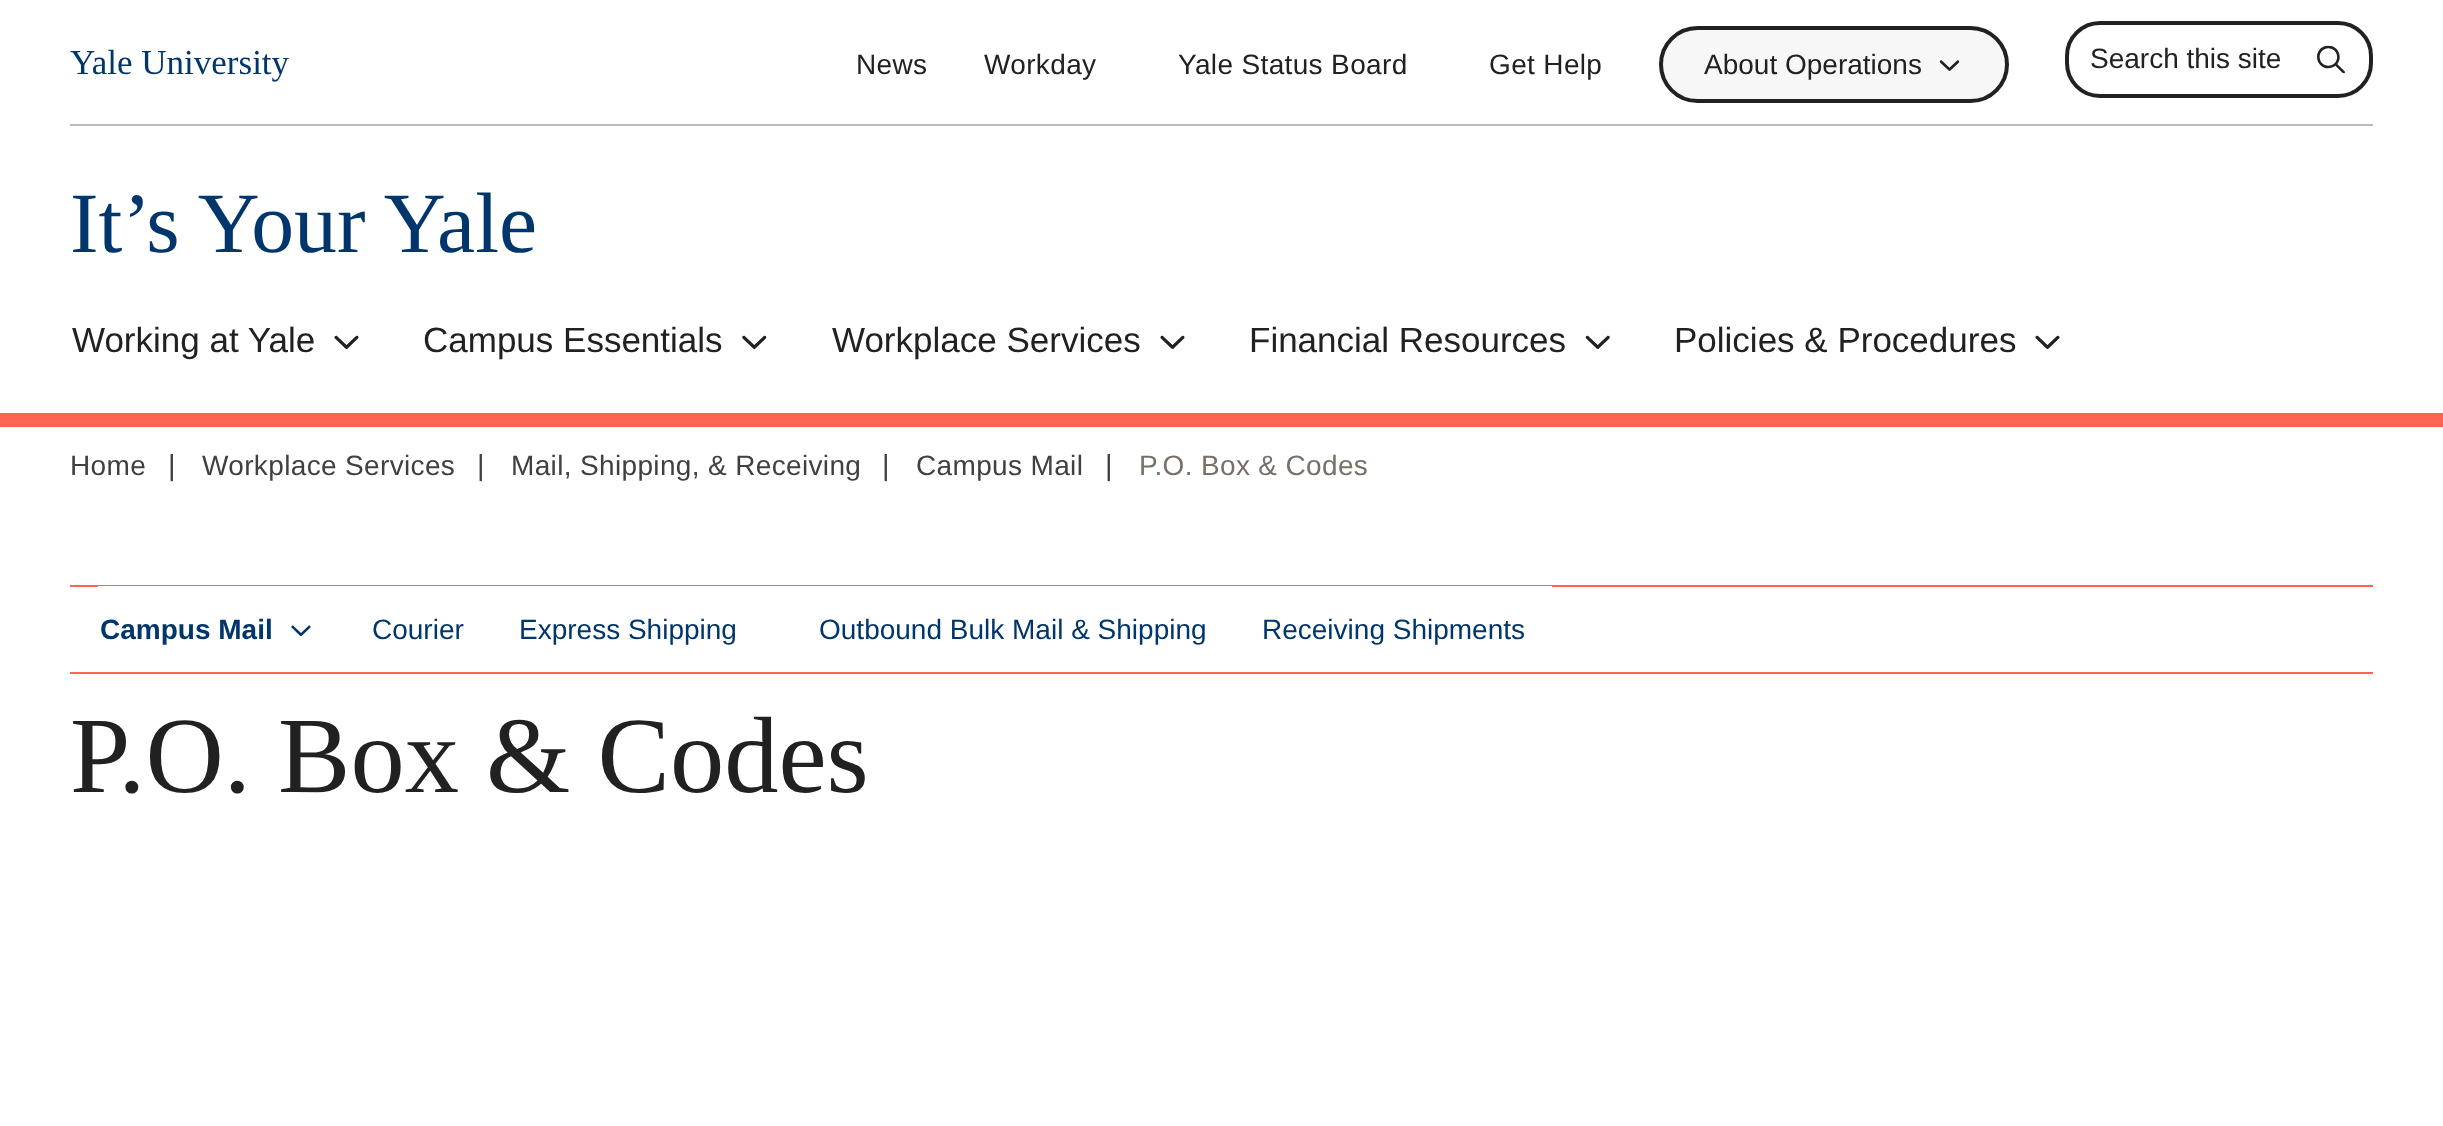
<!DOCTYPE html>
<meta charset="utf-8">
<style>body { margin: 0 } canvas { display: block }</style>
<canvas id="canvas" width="2443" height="1126"></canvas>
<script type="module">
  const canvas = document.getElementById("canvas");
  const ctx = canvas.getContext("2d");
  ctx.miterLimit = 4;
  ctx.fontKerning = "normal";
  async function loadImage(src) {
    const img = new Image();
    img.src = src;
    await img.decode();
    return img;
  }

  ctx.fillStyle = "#ffffff";
  ctx.fillRect(0, 0, 2443, 1126);
  ctx.fillStyle = "#ff6352";
  ctx.fillRect(0, 413, 2443, 14);
  ctx.fillStyle = "#bababa";
  ctx.fillRect(70, 124, 2303, 2);
  ctx.font = "35px Liberation Serif";
  ctx.fillStyle = "#00366b";
  ctx.fillText("Yale University", 70, 74);
  ctx.letterSpacing = "0.35px";
  ctx.font = "28px Liberation Sans";
  ctx.fillStyle = "#212121";
  ctx.fillText("News", 856, 74);
  ctx.fillText("Workday", 984, 74);
  ctx.fillText("Yale Status Board", 1178, 74);
  ctx.fillText("Get Help", 1489, 74);
  ctx.fillStyle = "#f7f7f7";
  ctx.beginPath();
  ctx.roundRect(1661, 28, 346, 73, 36.5);
  ctx.fill();
  ctx.strokeStyle = "#212121";
  ctx.lineWidth = 4;
  ctx.stroke();
  ctx.letterSpacing = "0px";
  ctx.fillStyle = "#212121";
  ctx.fillText("About Operations", 1704, 74);
  ctx.drawImage(await loadImage("img1.png"), 1939, 60, 21, 11);
  ctx.beginPath();
  ctx.roundRect(2067, 23, 304, 73, 33);
  ctx.stroke();
  ctx.fillText("Search this site", 2090, 68);
  ctx.drawImage(await loadImage("img2.png"), 2317, 45, 28, 29);
  ctx.font = "85.75px Liberation Serif";
  ctx.fillStyle = "#00366b";
  ctx.fillText("It’s Your Yale", 70, 252);
  ctx.font = "35px Liberation Sans";
  ctx.fillStyle = "#212121";
  ctx.fillText("Working at Yale", 72, 352);
  ctx.drawImage(await loadImage("img3.png"), 334, 335, 25, 14);
  ctx.fillText("Campus Essentials", 423, 352);
  ctx.drawImage(await loadImage("img4.png"), 742, 335, 25, 14);
  ctx.fillText("Workplace Services", 832, 352);
  ctx.drawImage(await loadImage("img3.png"), 1160, 335, 25, 14);
  ctx.fillText("Financial Resources", 1249, 352);
  ctx.drawImage(await loadImage("img5.png"), 1585, 335, 25, 14);
  ctx.fillText("Policies & Procedures", 1674, 352);
  ctx.drawImage(await loadImage("img3.png"), 2035, 335, 25, 14);
  ctx.letterSpacing = "0.35px";
  ctx.font = "28px Liberation Sans";
  ctx.fillStyle = "#404040";
  ctx.fillText("Home", 70, 475);
  ctx.letterSpacing = "0px";
  ctx.font = "29px Liberation Sans";
  ctx.fillText("|", 168, 475);
  ctx.letterSpacing = "0.35px";
  ctx.font = "28px Liberation Sans";
  ctx.fillText("Workplace Services", 202, 475);
  ctx.letterSpacing = "0px";
  ctx.font = "29px Liberation Sans";
  ctx.fillText("|", 477, 475);
  ctx.letterSpacing = "0.35px";
  ctx.font = "28px Liberation Sans";
  ctx.fillText("Mail, Shipping, & Receiving", 511, 475);
  ctx.letterSpacing = "0px";
  ctx.font = "29px Liberation Sans";
  ctx.fillText("|", 882, 475);
  ctx.letterSpacing = "0.35px";
  ctx.font = "28px Liberation Sans";
  ctx.fillText("Campus Mail", 916, 475);
  ctx.letterSpacing = "0px";
  ctx.font = "29px Liberation Sans";
  ctx.fillText("|", 1105, 475);
  ctx.letterSpacing = "0.35px";
  ctx.font = "28px Liberation Sans";
  ctx.fillStyle = "#787068";
  ctx.fillText("P.O. Box & Codes", 1139, 475);
  ctx.fillStyle = "#ff6352";
  ctx.fillRect(70, 585, 2303, 2);
  ctx.fillRect(70, 672, 2303, 2);
  ctx.fillStyle = "#ffffff";
  ctx.fillRect(98, 586, 1454, 1);
  ctx.letterSpacing = "0px";
  ctx.font = "bold 28px Liberation Sans";
  ctx.fillStyle = "#00366b";
  ctx.fillText("Campus Mail", 100, 639);
  ctx.drawImage(await loadImage("img6.png"), 291, 625, 20, 11);
  ctx.font = "28px Liberation Sans";
  ctx.fillText("Courier", 372, 639);
  ctx.fillText("Express Shipping", 519, 639);
  ctx.fillText("Outbound Bulk Mail & Shipping", 819, 639);
  ctx.fillText("Receiving Shipments", 1262, 639);
  ctx.font = "108.5px Liberation Serif";
  ctx.fillStyle = "#212121";
  ctx.fillText("P.O. Box & Codes", 70, 792);
</script>
